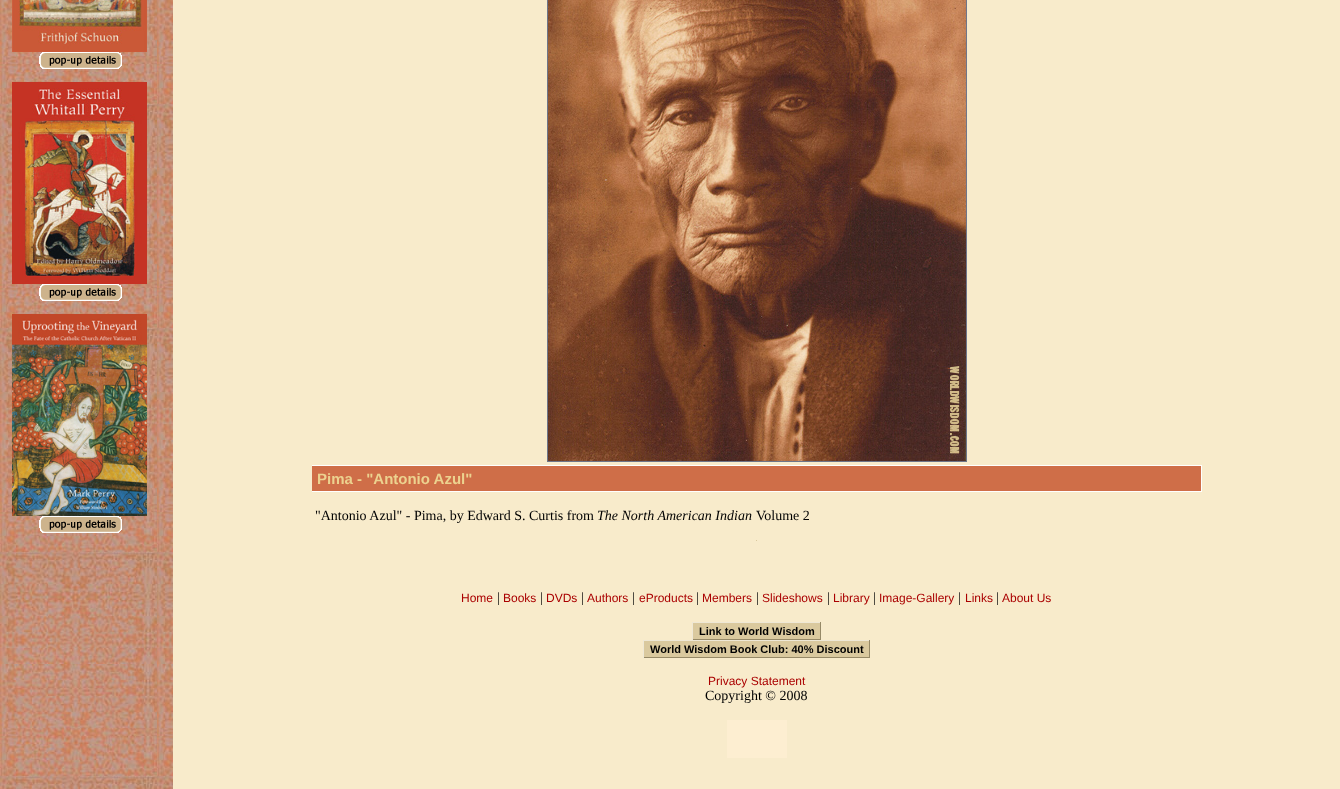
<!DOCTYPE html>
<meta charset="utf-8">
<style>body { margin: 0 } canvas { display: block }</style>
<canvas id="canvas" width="1340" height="789"></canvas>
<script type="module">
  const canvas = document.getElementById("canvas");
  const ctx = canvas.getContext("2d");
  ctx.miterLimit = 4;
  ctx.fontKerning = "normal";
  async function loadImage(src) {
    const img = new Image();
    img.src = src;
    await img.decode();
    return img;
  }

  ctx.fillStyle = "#f8ebcb";
  ctx.fillRect(0, 0, 1340, 789);
  ctx.drawImage(await loadImage("img1.png"), 0, 0, 173, 789);
  ctx.drawImage(await loadImage("img2.png"), 12, 0, 135, 52);
  ctx.drawImage(await loadImage("img3.png"), 39, 52, 83, 17);
  ctx.drawImage(await loadImage("img4.png"), 12, 82, 135, 202);
  ctx.drawImage(await loadImage("img5.png"), 39, 284, 83, 17);
  ctx.drawImage(await loadImage("img6.png"), 12, 314, 135, 202);
  ctx.drawImage(await loadImage("img7.png"), 39, 516, 83, 17);
  ctx.strokeStyle = "#6e768b";
  ctx.strokeRect(547.5, -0.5, 419, 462);
  ctx.drawImage(await loadImage("img8.png"), 548, 0, 418, 461);
  ctx.fillStyle = "#cf6e48";
  ctx.fillRect(312, 466, 889, 25);
  ctx.fillStyle = "#ffffff";
  ctx.fillRect(312, 465, 890, 1);
  ctx.fillRect(1201, 465, 1, 27);
  ctx.fillRect(312, 491, 890, 1);
  ctx.font = "bold 15px Liberation Sans";
  ctx.fillStyle = "#ecd28f";
  ctx.fillText("Pima - \"Antonio Azul\"", 317, 484);
  ctx.font = "14px Liberation Serif";
  ctx.fillStyle = "#000000";
  ctx.fillText("\"Antonio Azul\" - Pima, by Edward S. Curtis from", 315, 520);
  ctx.font = "italic 14px Liberation Serif";
  ctx.fillText("The North American Indian", 597, 520);
  ctx.font = "14px Liberation Serif";
  ctx.fillText("Volume 2", 756, 520);
  ctx.fillStyle = "#dac99e";
  ctx.fillRect(756, 540, 1, 1);
  ctx.font = "12px Liberation Sans";
  ctx.fillStyle = "#aa0000";
  ctx.fillText("Home", 461, 602);
  ctx.font = "14px Liberation Serif";
  ctx.fillStyle = "#000000";
  ctx.fillText("|", 497, 602);
  ctx.font = "12px Liberation Sans";
  ctx.fillStyle = "#aa0000";
  ctx.fillText("Books", 503, 602);
  ctx.font = "14px Liberation Serif";
  ctx.fillStyle = "#000000";
  ctx.fillText("|", 540, 602);
  ctx.font = "12px Liberation Sans";
  ctx.fillStyle = "#aa0000";
  ctx.fillText("DVDs", 546, 602);
  ctx.font = "14px Liberation Serif";
  ctx.fillStyle = "#000000";
  ctx.fillText("|", 581, 602);
  ctx.font = "12px Liberation Sans";
  ctx.fillStyle = "#aa0000";
  ctx.fillText("Authors", 587, 602);
  ctx.font = "14px Liberation Serif";
  ctx.fillStyle = "#000000";
  ctx.fillText("|", 632, 602);
  ctx.font = "12px Liberation Sans";
  ctx.fillStyle = "#aa0000";
  ctx.fillText("eProducts", 639, 602);
  ctx.font = "14px Liberation Serif";
  ctx.fillStyle = "#000000";
  ctx.fillText("|", 696, 602);
  ctx.font = "12px Liberation Sans";
  ctx.fillStyle = "#aa0000";
  ctx.fillText("Members", 702, 602);
  ctx.font = "14px Liberation Serif";
  ctx.fillStyle = "#000000";
  ctx.fillText("|", 756, 602);
  ctx.font = "12px Liberation Sans";
  ctx.fillStyle = "#aa0000";
  ctx.fillText("Slideshows", 762, 602);
  ctx.font = "14px Liberation Serif";
  ctx.fillStyle = "#000000";
  ctx.fillText("|", 827, 602);
  ctx.font = "12px Liberation Sans";
  ctx.fillStyle = "#aa0000";
  ctx.fillText("Library", 833, 602);
  ctx.font = "14px Liberation Serif";
  ctx.fillStyle = "#000000";
  ctx.fillText("|", 873, 602);
  ctx.font = "12px Liberation Sans";
  ctx.fillStyle = "#aa0000";
  ctx.fillText("Image-Gallery", 879, 602);
  ctx.font = "14px Liberation Serif";
  ctx.fillStyle = "#000000";
  ctx.fillText("|", 958, 602);
  ctx.font = "12px Liberation Sans";
  ctx.fillStyle = "#aa0000";
  ctx.fillText("Links", 965, 602);
  ctx.font = "14px Liberation Serif";
  ctx.fillStyle = "#000000";
  ctx.fillText("|", 996, 602);
  ctx.font = "12px Liberation Sans";
  ctx.fillStyle = "#aa0000";
  ctx.fillText("About Us", 1002, 602);
  ctx.fillStyle = "#dac99e";
  ctx.fillRect(693, 623, 127, 16);
  ctx.fillStyle = "#efe8d5";
  ctx.fillRect(692, 622, 129, 1);
  ctx.fillStyle = "#968967";
  ctx.fillRect(820, 622, 1, 18);
  ctx.fillRect(692, 639, 129, 1);
  ctx.fillStyle = "#efe8d5";
  ctx.fillRect(692, 622, 1, 18);
  ctx.font = "bold 11px Liberation Sans";
  ctx.fillStyle = "#000000";
  ctx.fillText("Link to World Wisdom", 699, 635);
  ctx.fillStyle = "#dac99e";
  ctx.fillRect(644, 641, 225, 16);
  ctx.fillStyle = "#efe8d5";
  ctx.fillRect(643, 640, 227, 1);
  ctx.fillStyle = "#968967";
  ctx.fillRect(869, 640, 1, 18);
  ctx.fillRect(643, 657, 227, 1);
  ctx.fillStyle = "#efe8d5";
  ctx.fillRect(643, 640, 1, 18);
  ctx.fillStyle = "#000000";
  ctx.fillText("World Wisdom Book Club: 40% Discount", 650, 653);
  ctx.font = "12px Liberation Sans";
  ctx.fillStyle = "#aa0000";
  ctx.fillText("Privacy Statement", 708, 685);
  ctx.font = "14px Liberation Serif";
  ctx.fillStyle = "#000000";
  ctx.fillText("Copyright © 2008", 705, 700);
  ctx.fillStyle = "#fdeed1";
  ctx.fillRect(727, 720, 60, 38);
</script>
